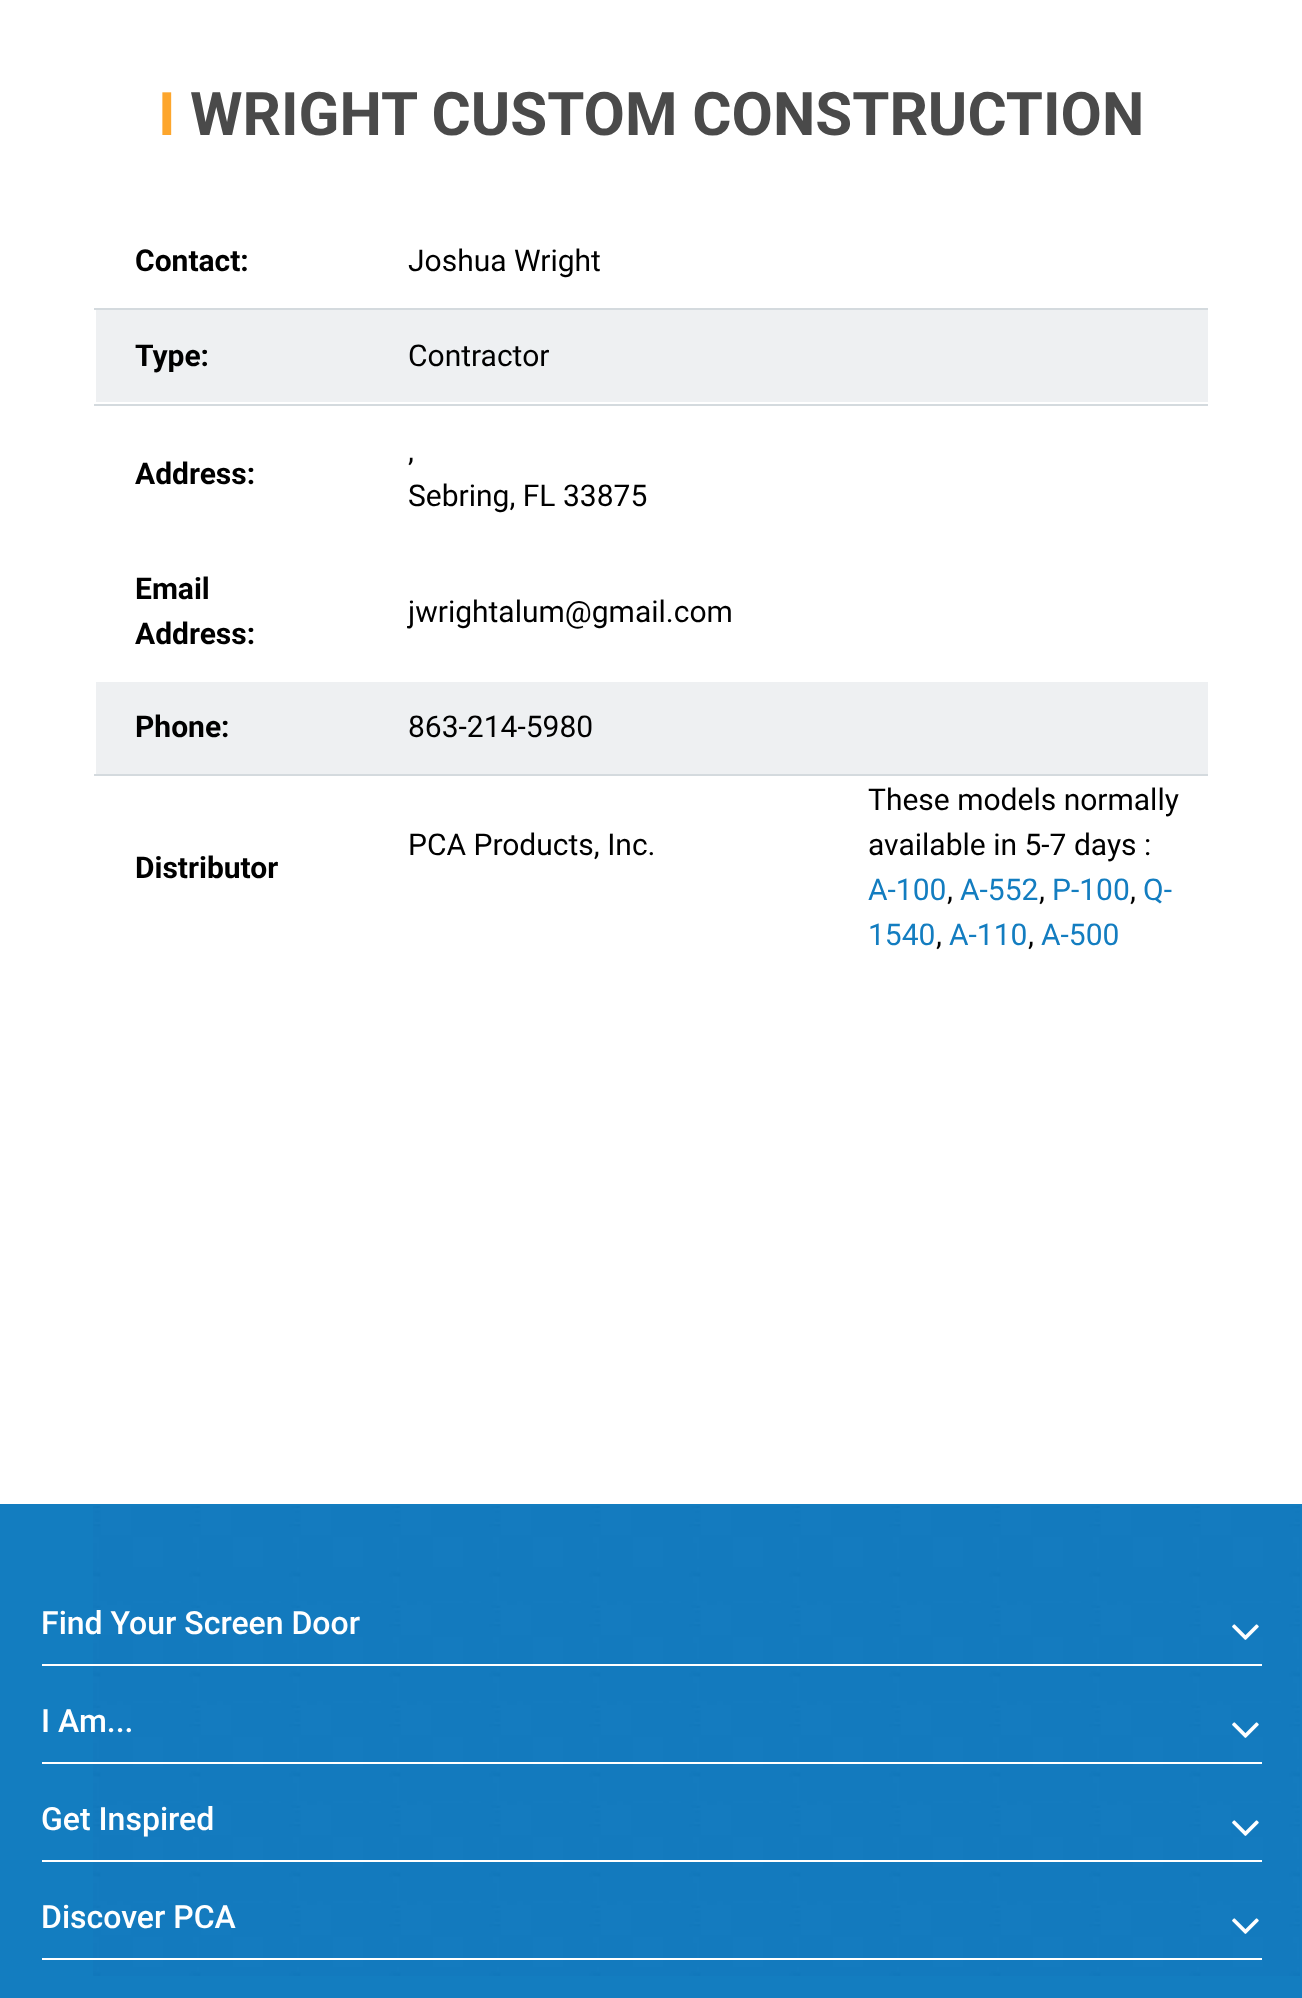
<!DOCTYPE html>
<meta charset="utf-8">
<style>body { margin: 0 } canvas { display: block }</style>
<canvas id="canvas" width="1302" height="1998"></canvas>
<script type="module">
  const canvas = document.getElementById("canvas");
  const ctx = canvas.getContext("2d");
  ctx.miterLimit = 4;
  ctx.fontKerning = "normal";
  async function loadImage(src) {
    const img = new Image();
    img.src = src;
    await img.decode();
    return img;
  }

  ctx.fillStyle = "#ffffff";
  ctx.fillRect(0, 0, 1302, 1998);
  ctx.font = "bold 60px Roboto";
  ctx.fillStyle = "#fda62d";
  ctx.fillText("I", 158, 135);
  ctx.fillStyle = "#4a4a4a";
  ctx.fillText("WRIGHT CUSTOM CONSTRUCTION", 190, 135);
  ctx.fillStyle = "#d4dade";
  ctx.fillRect(94, 308, 1114, 2);
  ctx.font = "bold 30px Roboto";
  ctx.fillStyle = "#000000";
  ctx.fillText("Contact:", 135, 271);
  ctx.font = "30px Roboto";
  ctx.fillText("Joshua Wright", 408, 271);
  ctx.fillStyle = "#eef0f2";
  ctx.fillRect(96, 310, 1112, 92);
  ctx.fillStyle = "#d4dade";
  ctx.fillRect(94, 404, 1114, 2);
  ctx.font = "bold 30px Roboto";
  ctx.fillStyle = "#000000";
  ctx.fillText("Type:", 135, 366);
  ctx.font = "30px Roboto";
  ctx.fillText("Contractor", 408, 366);
  ctx.font = "bold 30px Roboto";
  ctx.fillText("Address:", 135, 484);
  ctx.font = "30px Roboto";
  ctx.fillText(",", 408, 461);
  ctx.fillText("Sebring, FL 33875", 408, 506);
  ctx.font = "bold 30px Roboto";
  ctx.fillText("Email", 135, 599);
  ctx.fillText("Address:", 135, 644);
  ctx.font = "30px Roboto";
  ctx.fillText("jwrightalum@gmail.com", 408, 622);
  ctx.fillStyle = "#eef0f2";
  ctx.fillRect(96, 682, 1112, 92);
  ctx.fillStyle = "#d4dade";
  ctx.fillRect(94, 774, 1114, 2);
  ctx.font = "bold 30px Roboto";
  ctx.fillStyle = "#000000";
  ctx.fillText("Phone:", 135, 737);
  ctx.font = "30px Roboto";
  ctx.fillText("863-214-5980", 408, 737);
  ctx.fillText("PCA Products, Inc.", 408, 855);
  ctx.fillText("These models normally", 868, 810);
  ctx.fillText("available in 5-7 days :", 868, 855);
  ctx.fillStyle = "#137dc0";
  ctx.fillText("A-100", 868, 900);
  ctx.fillStyle = "#000000";
  ctx.fillText(",", 947, 900);
  ctx.fillStyle = "#137dc0";
  ctx.fillText("A-552", 960, 900);
  ctx.fillStyle = "#000000";
  ctx.fillText(",", 1039, 900);
  ctx.fillStyle = "#137dc0";
  ctx.fillText("P-100", 1052, 900);
  ctx.fillStyle = "#000000";
  ctx.fillText(",", 1130, 900);
  ctx.fillStyle = "#137dc0";
  ctx.fillText("Q-", 1143, 900);
  ctx.fillText("1540", 868, 945);
  ctx.fillStyle = "#000000";
  ctx.fillText(",", 936, 945);
  ctx.fillStyle = "#137dc0";
  ctx.fillText("A-110", 949, 945);
  ctx.fillStyle = "#000000";
  ctx.fillText(",", 1028, 945);
  ctx.fillStyle = "#137dc0";
  ctx.fillText("A-500", 1041, 945);
  ctx.font = "bold 30px Roboto";
  ctx.fillStyle = "#000000";
  ctx.fillText("Distributor", 135, 878);
  ctx.fillStyle = "#137dc0";
  ctx.fillRect(0, 1504, 1302, 494);
  ctx.drawImage(await loadImage("img1.png"), 93, 1506, 1207, 470);
  ctx.fillStyle = "#ffffff";
  ctx.fillRect(42, 1664, 1220, 2);
  ctx.font = "500 32px Roboto";
  ctx.fillText("Find Your Screen Door", 41, 1634);
  ctx.drawImage(await loadImage("img2.png"), 1232, 1624, 27, 16);
  ctx.fillRect(42, 1762, 1220, 2);
  ctx.fillText("I Am...", 41, 1732);
  ctx.drawImage(await loadImage("img3.png"), 1232, 1722, 27, 16);
  ctx.fillRect(42, 1860, 1220, 2);
  ctx.fillText("Get Inspired", 41, 1830);
  ctx.drawImage(await loadImage("img4.png"), 1232, 1820, 27, 16);
  ctx.fillRect(42, 1958, 1220, 2);
  ctx.fillText("Discover PCA", 41, 1928);
  ctx.drawImage(await loadImage("img4.png"), 1232, 1918, 27, 16);
</script>
